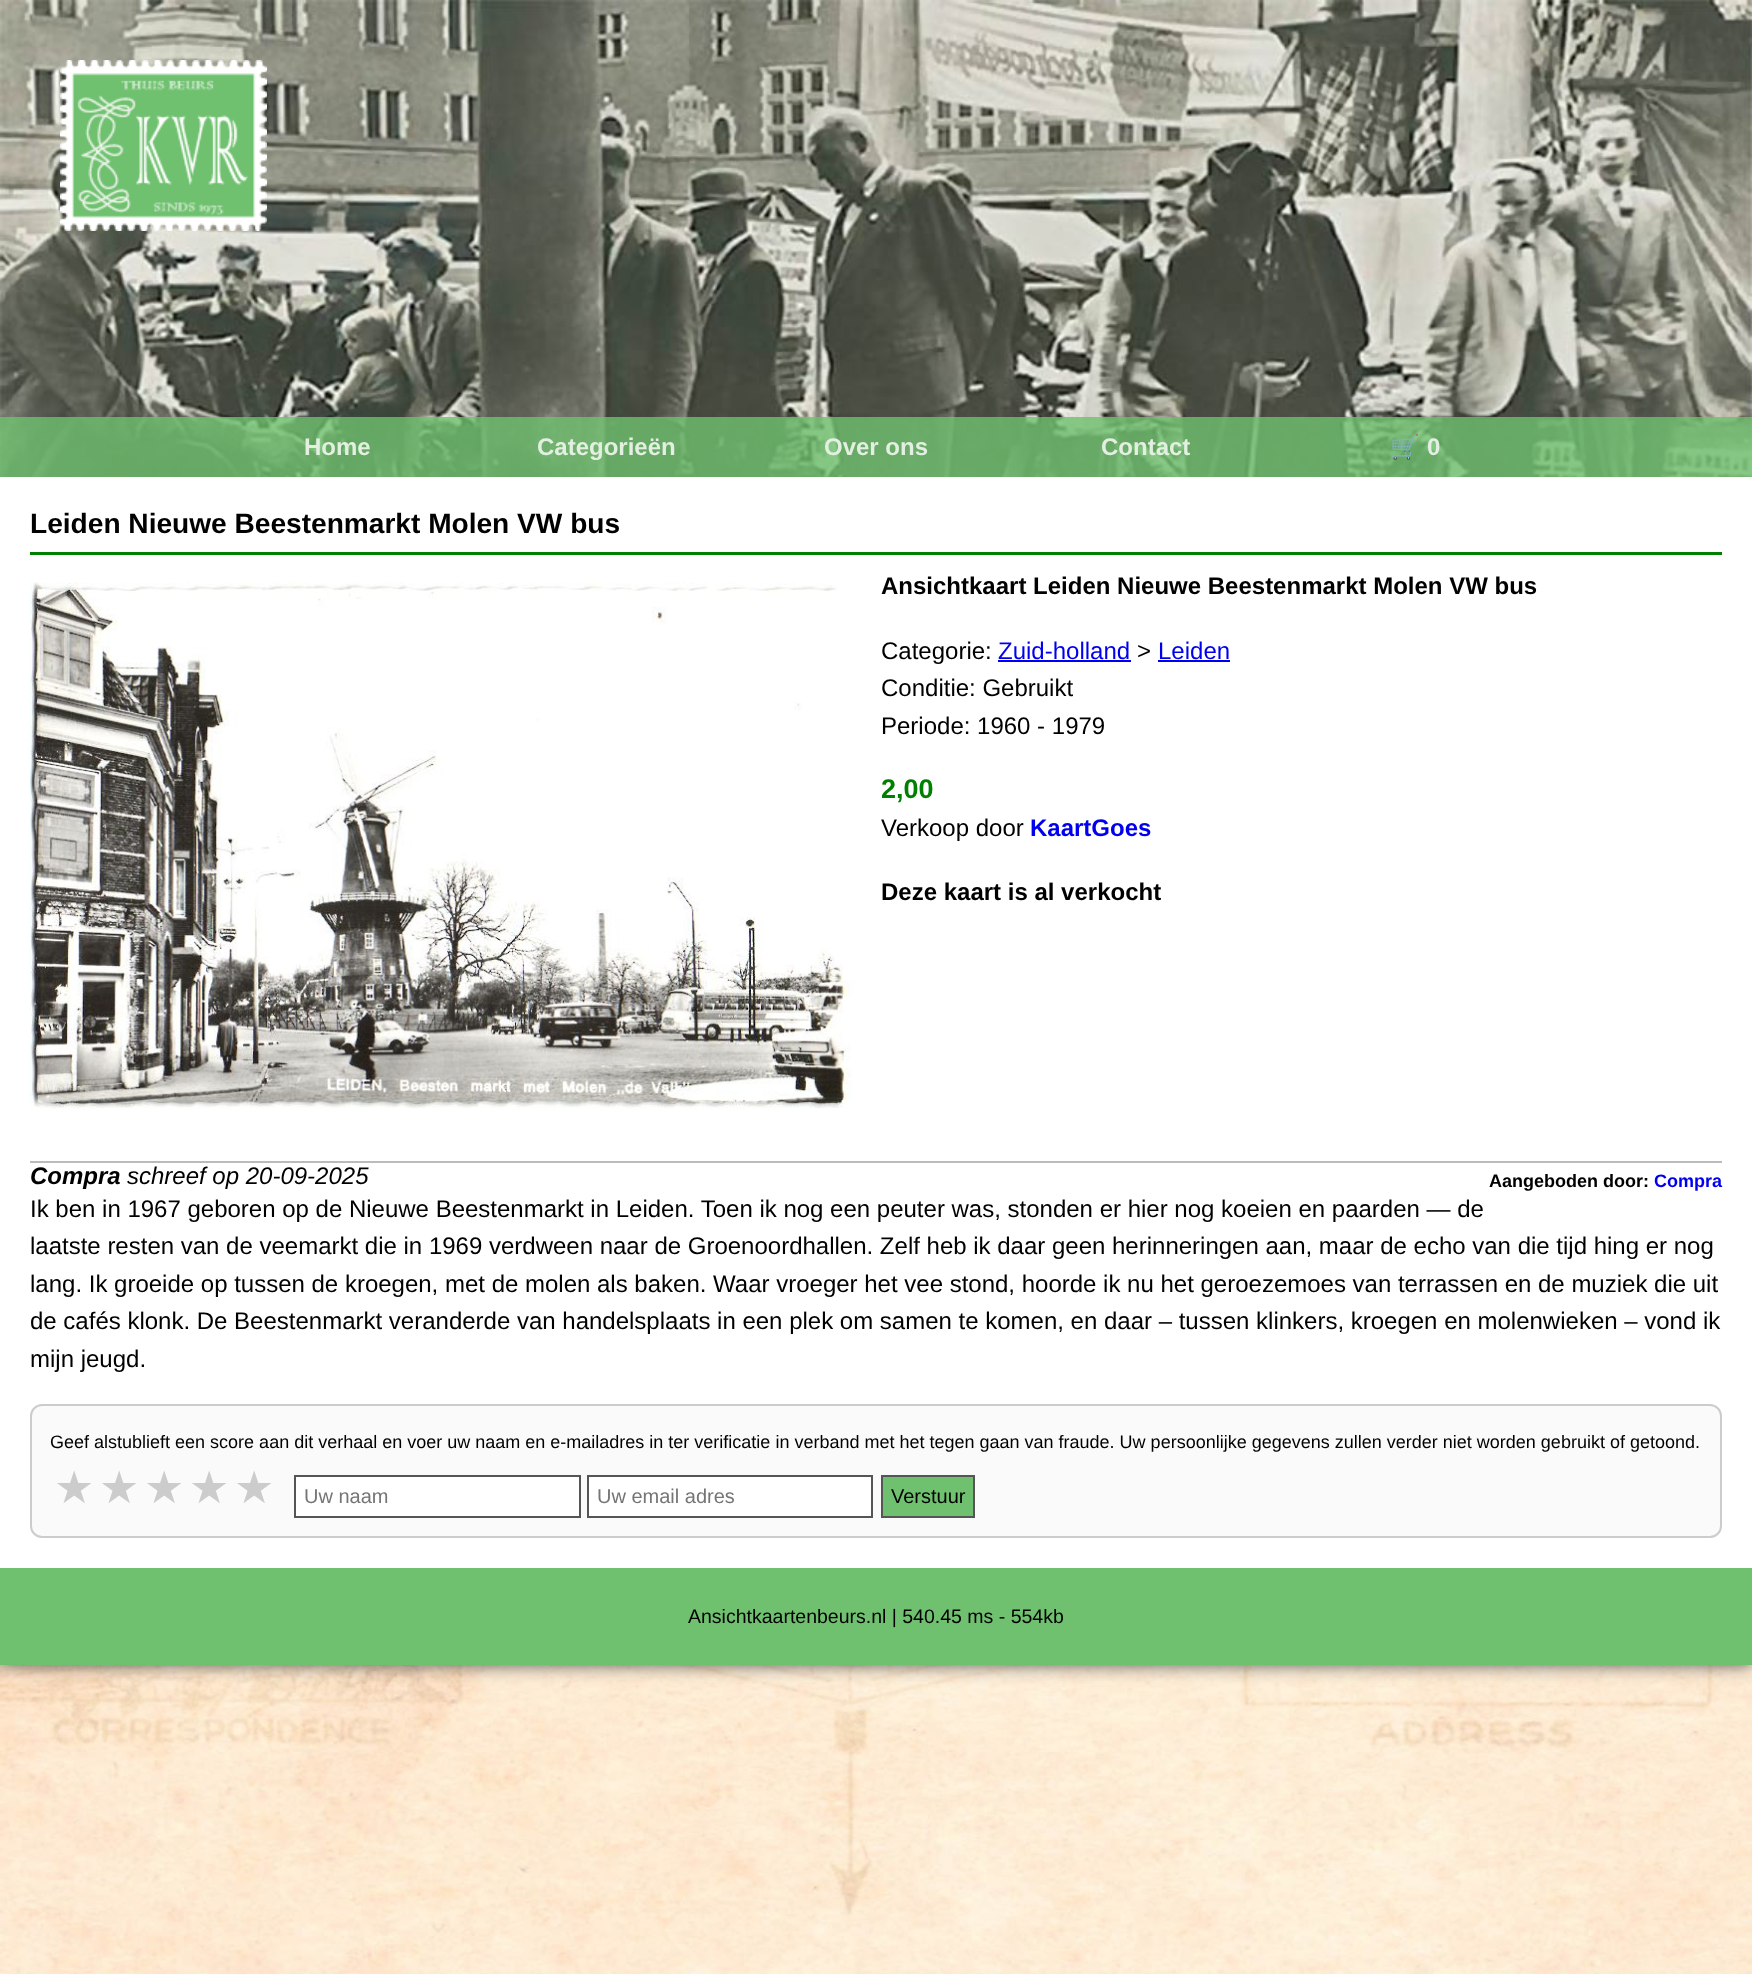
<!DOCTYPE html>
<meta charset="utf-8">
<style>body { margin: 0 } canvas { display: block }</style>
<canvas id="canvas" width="1752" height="1974"></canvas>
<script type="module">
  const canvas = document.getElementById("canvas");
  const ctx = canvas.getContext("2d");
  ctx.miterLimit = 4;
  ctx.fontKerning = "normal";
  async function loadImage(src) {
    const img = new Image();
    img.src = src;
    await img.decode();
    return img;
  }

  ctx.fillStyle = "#ffffff";
  ctx.fillRect(0, 0, 1752, 1974);
  ctx.drawImage(await loadImage("img1.png"), 0, 1665, 1752, 309);
  ctx.fillStyle = "#555555";
  ctx.filter = "blur(9px)";
  ctx.beginPath();
  ctx.rect(0, 0, 1752, 1665);
  ctx.fill();
  ctx.filter = "none";
  ctx.fillStyle = "#ffffff";
  ctx.fillRect(0, 477, 1752, 1091);
  ctx.drawImage(await loadImage("img2.png"), 0, 0, 1752, 477);
  ctx.drawImage(await loadImage("img3.png"), 60, 60, 207, 171);
  ctx.fillStyle = "rgba(111, 193, 111, 0.8)";
  ctx.fillRect(0, 417, 1752, 60);
  ctx.font = "bold 24px Liberation Sans";
  ctx.fillStyle = "#e2efe1";
  ctx.fillText("Home", 304, 455);
  ctx.fillText("Categorieën", 537, 455);
  ctx.fillText("Over ons", 824, 455);
  ctx.fillText("Contact", 1101, 455);
  ctx.font = "bold 24px Noto Color Emoji";
  ctx.fillText("🛒", 1390, 455);
  ctx.font = "bold 24px Liberation Sans";
  ctx.fillText("0", 1427, 455);
  ctx.font = "bold 28.1px Liberation Sans";
  ctx.fillStyle = "#000000";
  ctx.fillText("Leiden Nieuwe Beestenmarkt Molen VW bus", 30, 533);
  ctx.fillStyle = "#008000";
  ctx.fillRect(30, 552, 1692, 3);
  ctx.drawImage(await loadImage("img4.png"), 30, 582, 824, 527);
  ctx.font = "bold 24px Liberation Sans";
  ctx.fillStyle = "#000000";
  ctx.fillText("Ansichtkaart Leiden Nieuwe Beestenmarkt Molen VW bus", 881, 594);
  ctx.font = "24px Liberation Sans";
  ctx.fillText("Categorie:", 881, 659);
  ctx.fillStyle = "#0000ee";
  ctx.fillText("Zuid-holland", 998, 659);
  ctx.fillRect(998, 660, 133, 2);
  ctx.fillStyle = "#000000";
  ctx.fillText(">", 1137, 659);
  ctx.fillStyle = "#0000ee";
  ctx.fillText("Leiden", 1158, 659);
  ctx.fillRect(1158, 660, 72, 2);
  ctx.fillStyle = "#000000";
  ctx.fillText("Conditie: Gebruikt", 881, 696);
  ctx.fillText("Periode: 1960 - 1979", 881, 734);
  ctx.font = "bold 27px Liberation Sans";
  ctx.fillStyle = "#008000";
  ctx.fillText("2,00", 881, 798);
  ctx.font = "24px Liberation Sans";
  ctx.fillStyle = "#000000";
  ctx.fillText("Verkoop door", 881, 836);
  ctx.font = "bold 24px Liberation Sans";
  ctx.fillStyle = "#0000ee";
  ctx.fillText("KaartGoes", 1030, 836);
  ctx.fillStyle = "#000000";
  ctx.fillText("Deze kaart is al verkocht", 881, 900);
  ctx.fillStyle = "#bbbbbb";
  ctx.fillRect(30, 1161, 1692, 2);
  ctx.font = "italic bold 24px Liberation Sans";
  ctx.fillStyle = "#000000";
  ctx.fillText("Compra", 30, 1184);
  ctx.font = "italic 24px Liberation Sans";
  ctx.fillText("schreef op 20-09-2025", 127, 1184);
  ctx.font = "bold 18px Liberation Sans";
  ctx.fillText("Aangeboden door:", 1489, 1187);
  ctx.fillStyle = "#0000ee";
  ctx.fillText("Compra", 1654, 1187);
  ctx.font = "24px Liberation Sans";
  ctx.fillStyle = "#000000";
  ctx.fillText("Ik ben in 1967 geboren op de Nieuwe Beestenmarkt in Leiden. Toen ik nog een peuter was, stonden er hier nog koeien en paarden — de", 30, 1217);
  ctx.fillText("laatste resten van de veemarkt die in 1969 verdween naar de Groenoordhallen. Zelf heb ik daar geen herinneringen aan, maar de echo van die tijd hing er nog", 30, 1254);
  ctx.fillText("lang. Ik groeide op tussen de kroegen, met de molen als baken. Waar vroeger het vee stond, hoorde ik nu het geroezemoes van terrassen en de muziek die uit", 30, 1292);
  ctx.fillText("de cafés klonk. De Beestenmarkt veranderde van handelsplaats in een plek om samen te komen, en daar – tussen klinkers, kroegen en molenwieken – vond ik", 30, 1329);
  ctx.fillText("mijn jeugd.", 30, 1367);
  ctx.fillStyle = "#fafafa";
  ctx.beginPath();
  ctx.roundRect(31, 1405, 1690, 132, 11);
  ctx.fill();
  ctx.strokeStyle = "#cccccc";
  ctx.lineWidth = 2;
  ctx.stroke();
  ctx.font = "18px Liberation Sans";
  ctx.fillStyle = "#000000";
  ctx.fillText("Geef alstublieft een score aan dit verhaal en voer uw naam en e-mailadres in ter verificatie in verband met het tegen gaan van fraude. Uw persoonlijke gegevens zullen verder niet worden gebruikt of getoond.", 50, 1448);
  ctx.font = "45px DejaVu Sans";
  ctx.fillStyle = "#cccccc";
  ctx.fillText("★", 54, 1503);
  ctx.fillText("★", 99, 1503);
  ctx.fillText("★", 144, 1503);
  ctx.fillText("★", 189, 1503);
  ctx.fillText("★", 234, 1503);
  ctx.fillStyle = "#ffffff";
  ctx.beginPath();
  ctx.rect(295, 1476, 285, 41);
  ctx.fill();
  ctx.strokeStyle = "#555555";
  ctx.stroke();
  ctx.font = "20px Liberation Sans";
  ctx.fillStyle = "#757575";
  ctx.fillText("Uw naam", 304, 1503);
  ctx.fillStyle = "#ffffff";
  ctx.beginPath();
  ctx.rect(588, 1476, 284, 41);
  ctx.fill();
  ctx.stroke();
  ctx.fillStyle = "#757575";
  ctx.fillText("Uw email adres", 597, 1503);
  ctx.fillStyle = "#6fc16f";
  ctx.beginPath();
  ctx.rect(882, 1476, 92, 41);
  ctx.fill();
  ctx.stroke();
  ctx.fillStyle = "#000000";
  ctx.fillText("Verstuur", 891, 1503);
  ctx.fillStyle = "#6fc16f";
  ctx.fillRect(0, 1568, 1752, 97);
  ctx.font = "19.5px Liberation Sans";
  ctx.fillStyle = "#000000";
  ctx.fillText("Ansichtkaartenbeurs.nl | 540.45 ms - 554kb", 688, 1623);
</script>
